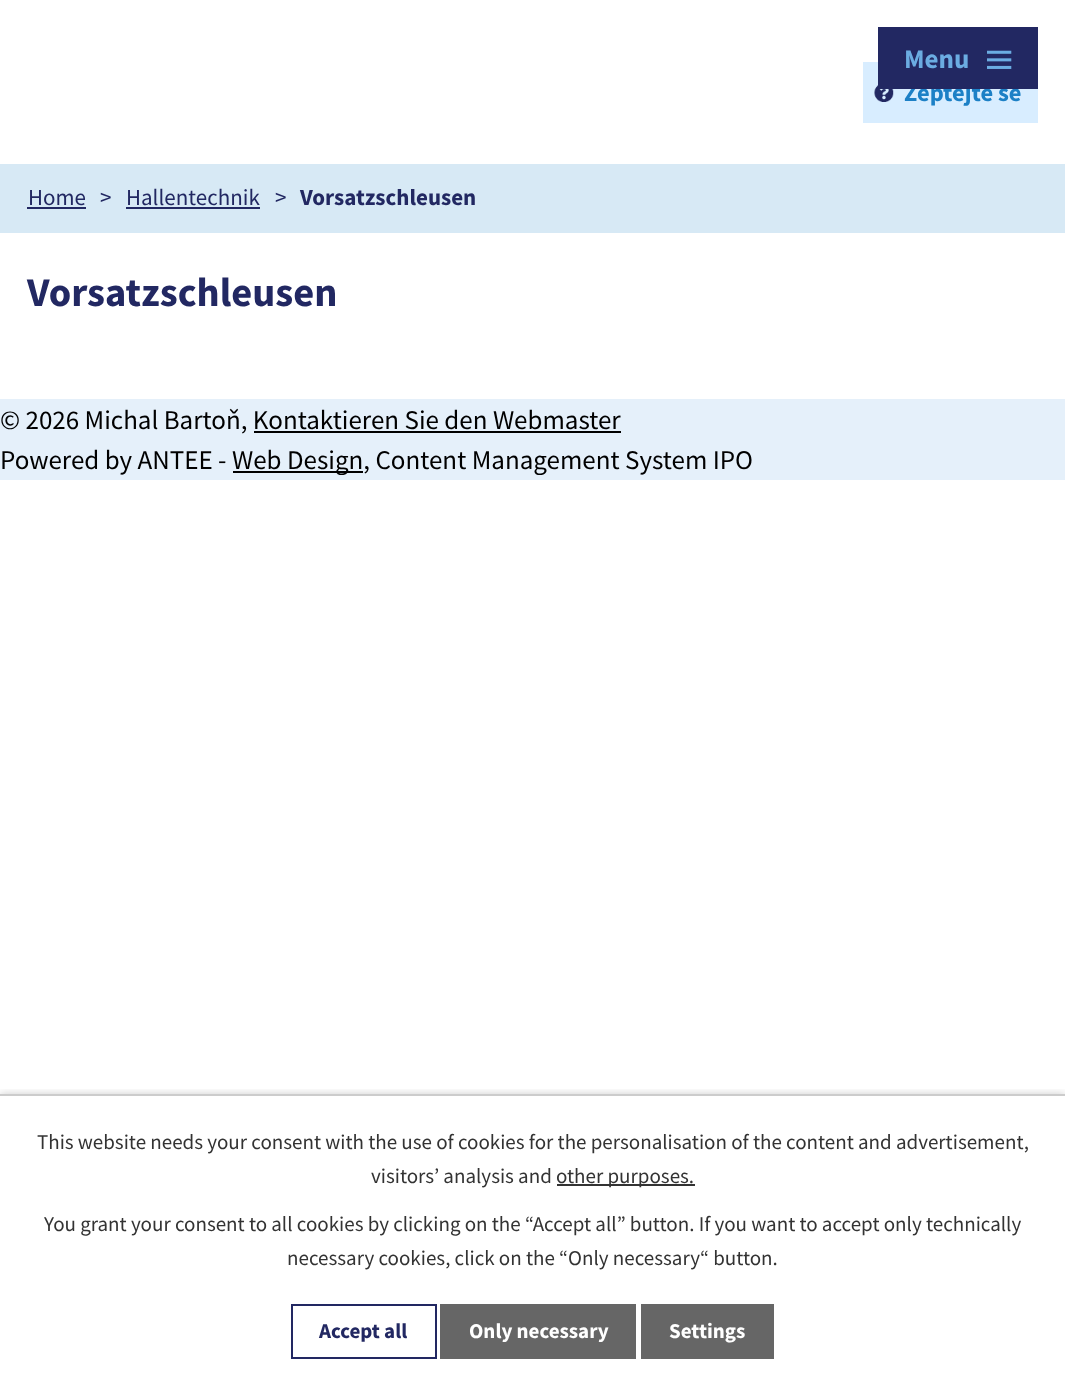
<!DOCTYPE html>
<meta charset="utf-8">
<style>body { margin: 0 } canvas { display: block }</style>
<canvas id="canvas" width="1065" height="1387"></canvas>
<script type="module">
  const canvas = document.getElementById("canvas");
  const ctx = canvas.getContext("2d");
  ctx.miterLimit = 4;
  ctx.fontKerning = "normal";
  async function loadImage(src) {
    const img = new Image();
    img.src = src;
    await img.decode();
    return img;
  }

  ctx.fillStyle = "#ffffff";
  ctx.fillRect(0, 0, 1065, 1387);
  ctx.fillStyle = "#d8edff";
  ctx.fillRect(863, 62, 175, 61);
  ctx.drawImage(await loadImage("img2.png"), 874, 85, 20, 17);
  ctx.font = "bold 24.5px Source Sans Pro";
  ctx.fillStyle = "#1c80c6";
  ctx.fillText("Zeptejte se", 904, 101);
  ctx.fillStyle = "#222862";
  ctx.fillRect(878, 27, 160, 62);
  ctx.font = "bold 27px Source Sans Pro";
  ctx.fillStyle = "#6bace2";
  ctx.fillText("Menu", 904, 68);
  ctx.drawImage(await loadImage("img1.png"), 987, 50, 25, 19);
  ctx.fillStyle = "#d7e9f5";
  ctx.fillRect(0, 164, 1065, 69);
  ctx.font = "23px Source Sans Pro";
  ctx.fillStyle = "#222862";
  ctx.fillText("Home", 28, 205);
  ctx.fillRect(27, 207, 59, 2);
  ctx.fillText(">", 100, 205);
  ctx.fillText("Hallentechnik", 126, 205);
  ctx.fillRect(126, 207, 134, 2);
  ctx.fillText(">", 275, 205);
  ctx.font = "bold 23px Source Sans Pro";
  ctx.fillText("Vorsatzschleusen", 300, 205);
  ctx.font = "bold 40.5px Source Sans Pro";
  ctx.fillText("Vorsatzschleusen", 27, 306);
  ctx.fillStyle = "#e5f0fa";
  ctx.fillRect(0, 399, 1065, 81);
  ctx.font = "27px Source Sans Pro";
  ctx.fillStyle = "#000000";
  ctx.fillText("© 2026 Michal Bartoň, Kontaktieren Sie den Webmaster", 0, 429);
  ctx.fillRect(254, 431, 367, 2);
  ctx.fillText("Powered by ANTEE -", 0, 469);
  ctx.fillRect(233, 471, 130, 2);
  ctx.fillText("Web Design, Content Management System IPO", 232, 469);
  ctx.save();
  ctx.beginPath();
  ctx.rect(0, 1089, 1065, 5);
  ctx.clip();
  ctx.fillStyle = "rgba(0, 0, 0, 0.2)";
  ctx.filter = "blur(4px)";
  ctx.beginPath();
  ctx.rect(0, 1094, 1065, 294);
  ctx.fill();
  ctx.filter = "none";
  ctx.restore();
  ctx.fillStyle = "#cccccc";
  ctx.fillRect(0, 1094, 1065, 2);
  ctx.font = "21px Source Sans Pro";
  ctx.fillStyle = "#333333";
  ctx.fillText("This website needs your consent with the use of cookies for the personalisation of the content and advertisement,", 37, 1149);
  ctx.fillText("visitors’ analysis and", 371, 1183);
  ctx.fillRect(557, 1184, 138, 2);
  ctx.fillText("other purposes.", 556, 1183);
  ctx.fillText("You grant your consent to all cookies by clicking on the “Accept all” button. If you want to accept only technically", 44, 1231);
  ctx.fillText("necessary cookies, click on the “Only necessary“ button.", 287, 1265);
  ctx.strokeStyle = "#222862";
  ctx.lineWidth = 2;
  ctx.strokeRect(292, 1305, 144, 53);
  ctx.font = "bold 21px Source Sans Pro";
  ctx.fillStyle = "#222862";
  ctx.fillText("Accept all", 319, 1338);
  ctx.fillStyle = "#666666";
  ctx.fillRect(440, 1304, 196, 55);
  ctx.fillStyle = "#ffffff";
  ctx.fillText("Only necessary", 469, 1338);
  ctx.fillStyle = "#666666";
  ctx.fillRect(641, 1304, 133, 55);
  ctx.fillStyle = "#ffffff";
  ctx.fillText("Settings", 669, 1338);
</script>
